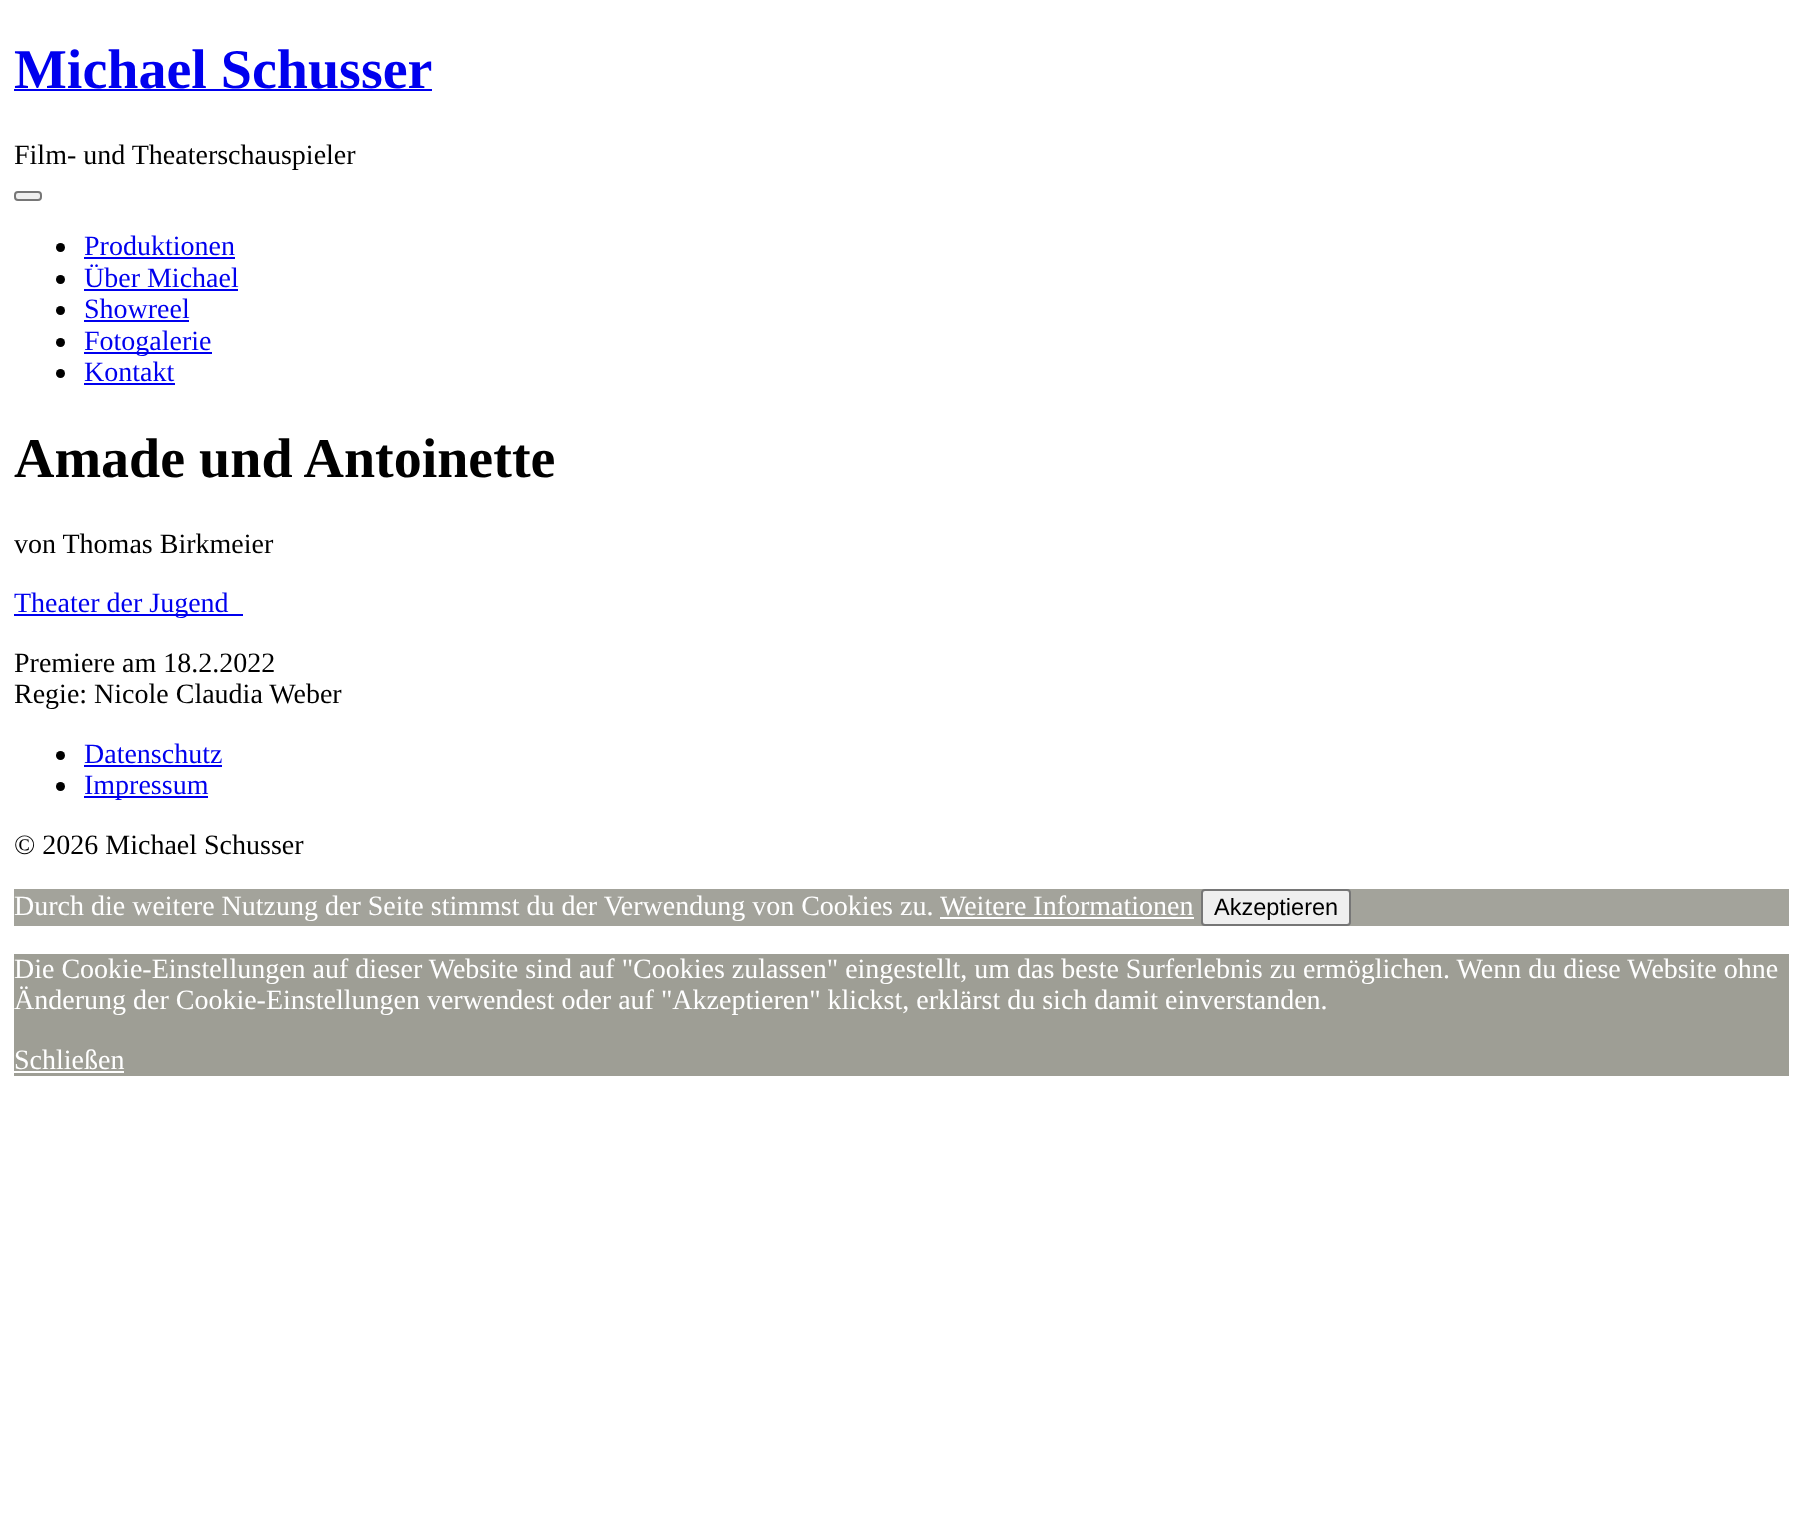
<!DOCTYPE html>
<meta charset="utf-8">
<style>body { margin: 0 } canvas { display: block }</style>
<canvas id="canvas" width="1801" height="1529"></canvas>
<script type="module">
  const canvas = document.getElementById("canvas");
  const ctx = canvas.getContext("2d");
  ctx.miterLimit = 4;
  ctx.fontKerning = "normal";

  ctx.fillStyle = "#ffffff";
  ctx.fillRect(0, 0, 1801, 1529);
  ctx.font = "bold 56px Liberation Serif";
  ctx.fillStyle = "#0000ee";
  ctx.fillText("Michael Schusser", 14, 88);
  ctx.fillRect(14, 89, 418, 2);
  ctx.font = "28px Liberation Serif";
  ctx.fillStyle = "#000000";
  ctx.fillText("Film- und Theaterschauspieler", 14, 164);
  ctx.fillStyle = "#efefef";
  ctx.beginPath();
  ctx.roundRect(15, 192, 26, 8, 3);
  ctx.fill();
  ctx.strokeStyle = "#767676";
  ctx.lineWidth = 2;
  ctx.stroke();
  ctx.fillStyle = "#000000";
  ctx.beginPath();
  ctx.arc(60.5, 247.5, 4.5, 0, Math.PI * 2);
  ctx.fill();
  ctx.fillStyle = "#0000ee";
  ctx.fillText("Produktionen", 84, 255);
  ctx.fillRect(84, 257, 151, 2);
  ctx.fillStyle = "#000000";
  ctx.beginPath();
  ctx.arc(60.5, 279.5, 4.5, 0, Math.PI * 2);
  ctx.fill();
  ctx.fillStyle = "#0000ee";
  ctx.fillText("Über Michael", 84, 287);
  ctx.fillRect(84, 289, 154, 2);
  ctx.fillStyle = "#000000";
  ctx.beginPath();
  ctx.arc(60.5, 310.5, 4.5, 0, Math.PI * 2);
  ctx.fill();
  ctx.fillStyle = "#0000ee";
  ctx.fillText("Showreel", 84, 318);
  ctx.fillRect(84, 320, 105, 2);
  ctx.fillStyle = "#000000";
  ctx.beginPath();
  ctx.arc(60.5, 342.5, 4.5, 0, Math.PI * 2);
  ctx.fill();
  ctx.fillStyle = "#0000ee";
  ctx.fillRect(84, 352, 128, 2);
  ctx.fillText("Fotogalerie", 84, 350);
  ctx.fillStyle = "#000000";
  ctx.beginPath();
  ctx.arc(60.5, 373.5, 4.5, 0, Math.PI * 2);
  ctx.fill();
  ctx.fillStyle = "#0000ee";
  ctx.fillText("Kontakt", 84, 381);
  ctx.fillRect(84, 383, 91, 2);
  ctx.font = "bold 56px Liberation Serif";
  ctx.fillStyle = "#000000";
  ctx.fillText("Amade und Antoinette", 14, 477);
  ctx.font = "28px Liberation Serif";
  ctx.fillText("von Thomas Birkmeier", 14, 553);
  ctx.fillStyle = "#0000ee";
  ctx.fillRect(14, 614, 229, 2);
  ctx.fillText("Theater der Jugend", 14, 612);
  ctx.fillStyle = "#000000";
  ctx.fillText("Premiere am 18.2.2022", 14, 672);
  ctx.fillText("Regie: Nicole Claudia Weber", 14, 703);
  ctx.beginPath();
  ctx.arc(60.5, 755.5, 4.5, 0, Math.PI * 2);
  ctx.fill();
  ctx.fillStyle = "#0000ee";
  ctx.fillText("Datenschutz", 84, 763);
  ctx.fillRect(84, 765, 138, 2);
  ctx.fillStyle = "#000000";
  ctx.beginPath();
  ctx.arc(60.5, 786.5, 4.5, 0, Math.PI * 2);
  ctx.fill();
  ctx.fillStyle = "#0000ee";
  ctx.fillRect(84, 796, 124, 2);
  ctx.fillText("Impressum", 84, 794);
  ctx.fillStyle = "#000000";
  ctx.fillText("© 2026 Michael Schusser", 14, 854);
  ctx.fillStyle = "#a3a39b";
  ctx.fillRect(14, 889, 1775, 37);
  ctx.fillStyle = "#ffffff";
  ctx.fillText("Durch die weitere Nutzung der Seite stimmst du der Verwendung von Cookies zu.", 14, 915);
  ctx.fillText("Weitere Informationen", 940, 915);
  ctx.fillRect(940, 917, 254, 2);
  ctx.fillStyle = "#efefef";
  ctx.beginPath();
  ctx.roundRect(1202, 890, 148, 35, 3);
  ctx.fill();
  ctx.stroke();
  ctx.font = "23.5px Liberation Sans";
  ctx.fillStyle = "#000000";
  ctx.fillText("Akzeptieren", 1214, 915);
  ctx.fillStyle = "#9e9e95";
  ctx.fillRect(14, 954, 1775, 122);
  ctx.font = "28px Liberation Serif";
  ctx.fillStyle = "#ffffff";
  ctx.fillText("Die Cookie-Einstellungen auf dieser Website sind auf \"Cookies zulassen\" eingestellt, um das beste Surferlebnis zu ermöglichen. Wenn du diese Website ohne", 14, 978);
  ctx.fillText("Änderung der Cookie-Einstellungen verwendest oder auf \"Akzeptieren\" klickst, erklärst du sich damit einverstanden.", 14, 1009);
  ctx.fillText("Schließen", 14, 1069);
  ctx.fillRect(14, 1071, 110, 2);
</script>
